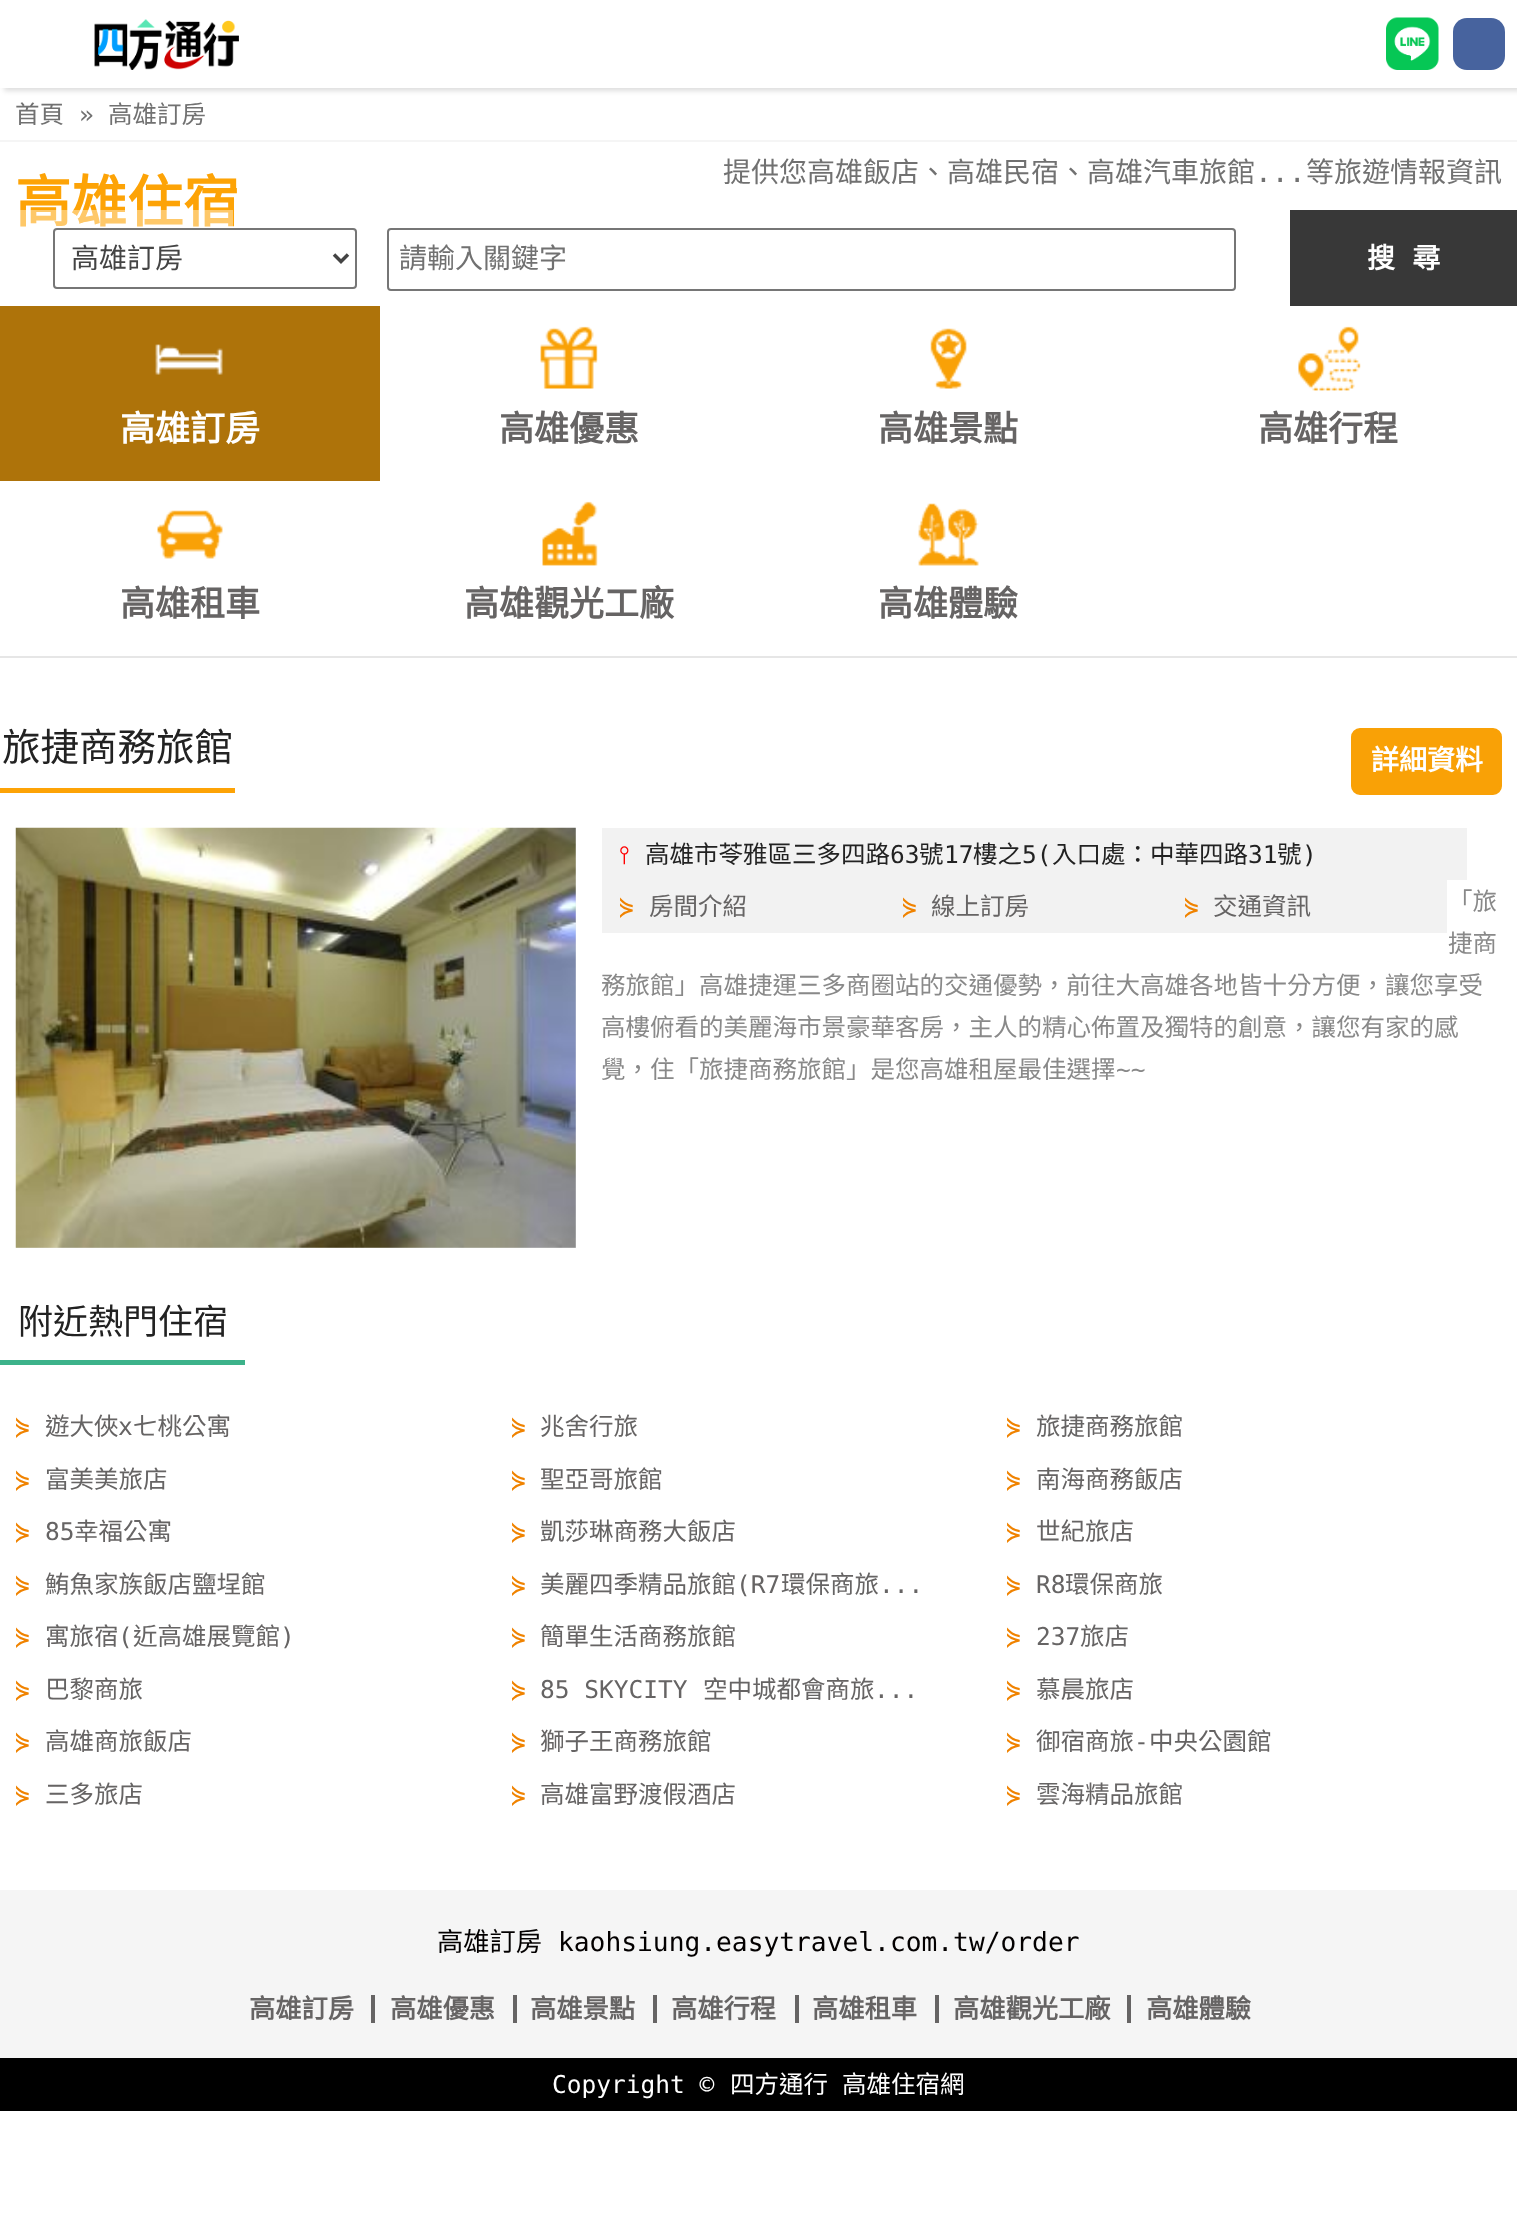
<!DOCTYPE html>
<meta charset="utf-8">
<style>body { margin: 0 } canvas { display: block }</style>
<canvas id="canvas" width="1517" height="2225"></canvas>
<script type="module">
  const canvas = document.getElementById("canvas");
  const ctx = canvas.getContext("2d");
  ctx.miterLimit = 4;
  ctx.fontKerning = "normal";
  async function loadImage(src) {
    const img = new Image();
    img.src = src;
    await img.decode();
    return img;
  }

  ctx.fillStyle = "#ffffff";
  ctx.fillRect(0, 0, 1517, 2225);
  ctx.fillStyle = "rgba(0, 0, 0, 0.13)";
  ctx.filter = "blur(2.5px)";
  ctx.beginPath();
  ctx.rect(4, 4, 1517, 87);
  ctx.fill();
  ctx.filter = "none";
  ctx.fillStyle = "#ffffff";
  ctx.fillRect(0, 0, 1517, 88);
  ctx.drawImage(await loadImage("img1.png"), 94, 19, 145, 51);
  ctx.drawImage(await loadImage("img2.png"), 1386, 17, 53, 53);
  ctx.fillStyle = "#47639e";
  ctx.beginPath();
  ctx.roundRect(1453, 18, 52, 52, 14);
  ctx.fill();
  ctx.fillStyle = "#f5f5f5";
  ctx.fillRect(0, 140, 1517, 2);
  ctx.font = "24.5px Noto Sans CJK TC";
  ctx.fillStyle = "#717171";
  ctx.fillText("首頁", 15, 123);
  ctx.font = "24.5px DejaVu Sans Mono";
  ctx.fillText("»", 79, 123);
  ctx.font = "24.5px Noto Sans CJK TC";
  ctx.fillText("高雄訂房", 108, 123);
  ctx.font = "bold 56px Noto Sans CJK TC";
  ctx.fillStyle = "#fda306";
  ctx.fillText("高雄住宿", 15, 222);
  ctx.font = "28px Noto Sans CJK TC";
  ctx.fillStyle = "#717171";
  ctx.fillText("提供您高雄飯店、高雄民宿、高雄汽車旅館", 723, 182);
  ctx.font = "28px DejaVu Sans Mono";
  ctx.fillText("...", 1255, 182);
  ctx.font = "28px Noto Sans CJK TC";
  ctx.fillText("等旅遊情報資訊", 1306, 182);
  ctx.fillStyle = "rgba(255, 255, 255, 0.4)";
  ctx.fillRect(20, 210, 213, 17);
  ctx.beginPath();
  ctx.roundRect(54, 229, 302, 59, 3);
  ctx.strokeStyle = "#767676";
  ctx.lineWidth = 2;
  ctx.stroke();
  ctx.beginPath();
  ctx.moveTo(334, 254.5);
  ctx.lineTo(341, 261.5);
  ctx.lineTo(348, 254.5);
  ctx.strokeStyle = "#444444";
  ctx.lineWidth = 3.5;
  ctx.stroke();
  ctx.fillStyle = "#444444";
  ctx.fillText("高雄訂房", 71, 268);
  ctx.beginPath();
  ctx.roundRect(388, 229, 847, 61, 3);
  ctx.strokeStyle = "#767676";
  ctx.lineWidth = 2;
  ctx.stroke();
  ctx.fillStyle = "#717171";
  ctx.fillText("請輸入關鍵字", 399, 268);
  ctx.fillStyle = "#383838";
  ctx.fillRect(1290, 210, 227, 96);
  ctx.wordSpacing = "11px";
  ctx.font = "bold 28px Noto Sans CJK TC";
  ctx.fillStyle = "#ffffff";
  ctx.fillText("搜 尋", 1367, 268);
  ctx.fillStyle = "#e6e6e6";
  ctx.fillRect(0, 656, 1517, 2);
  ctx.fillStyle = "#ae730a";
  ctx.fillRect(0, 306, 380, 175);
  ctx.drawImage(await loadImage("img3.png"), 155, 344, 68, 31);
  ctx.wordSpacing = "0px";
  ctx.font = "bold 35px Noto Sans CJK TC";
  ctx.fillStyle = "#ffffff";
  ctx.fillText("高雄訂房", 120, 441);
  ctx.drawImage(await loadImage("img4.png"), 540, 326, 58, 63);
  ctx.fillStyle = "#666464";
  ctx.fillText("高雄優惠", 499, 441);
  ctx.drawImage(await loadImage("img5.png"), 930, 328, 37, 61);
  ctx.fillText("高雄景點", 878, 441);
  ctx.drawImage(await loadImage("img6.png"), 1298, 326, 63, 65);
  ctx.fillText("高雄行程", 1258, 441);
  ctx.drawImage(await loadImage("img7.png"), 157, 510, 66, 49);
  ctx.fillText("高雄租車", 120, 616);
  ctx.drawImage(await loadImage("img8.png"), 542, 501, 56, 65);
  ctx.fillText("高雄觀光工廠", 464, 616);
  ctx.drawImage(await loadImage("img9.png"), 918, 503, 61, 63);
  ctx.fillText("高雄體驗", 878, 616);
  ctx.fillStyle = "#fda306";
  ctx.fillRect(0, 788, 235, 5);
  ctx.font = "38.5px Noto Sans CJK TC";
  ctx.fillStyle = "#222222";
  ctx.fillText("旅捷商務旅館", 2, 761);
  ctx.fillStyle = "#f9a106";
  ctx.beginPath();
  ctx.roundRect(1352, 729, 149, 65, 8);
  ctx.fill();
  ctx.strokeStyle = "#f9a106";
  ctx.stroke();
  ctx.font = "bold 28px Noto Sans CJK TC";
  ctx.fillStyle = "#ffffff";
  ctx.fillText("詳細資料", 1371, 770);
  ctx.fillStyle = "#e6e6e6";
  ctx.fillRect(16, 828, 560, 420);
  ctx.drawImage(await loadImage("img10.png"), 15, 827, 561, 421);
  ctx.fillStyle = "#f2f2f2";
  ctx.fillRect(602, 828, 865, 52);
  ctx.font = "24.5px FreeSerif";
  ctx.fillStyle = "#ff0000";
  ctx.fillText("⫯", 619, 863);
  ctx.font = "24.5px Noto Sans CJK TC";
  ctx.fillStyle = "#222222";
  ctx.fillText("高雄市苓雅區三多四路", 645, 863);
  ctx.font = "24.5px DejaVu Sans Mono";
  ctx.fillText("63", 890, 863);
  ctx.font = "24.5px Noto Sans CJK TC";
  ctx.fillText("號", 919, 863);
  ctx.font = "24.5px DejaVu Sans Mono";
  ctx.fillText("17", 944, 863);
  ctx.font = "24.5px Noto Sans CJK TC";
  ctx.fillText("樓之", 973, 863);
  ctx.font = "24.5px DejaVu Sans Mono";
  ctx.fillText("5(", 1022, 863);
  ctx.font = "24.5px Noto Sans CJK TC";
  ctx.fillText("入口處：中華四路", 1052, 863);
  ctx.font = "24.5px DejaVu Sans Mono";
  ctx.fillText("31", 1248, 863);
  ctx.font = "24.5px Noto Sans CJK TC";
  ctx.fillText("號", 1277, 863);
  ctx.font = "24.5px DejaVu Sans Mono";
  ctx.fillText(")", 1302, 863);
  ctx.fillStyle = "#f2f2f2";
  ctx.fillRect(602, 880, 845, 53);
  ctx.fillStyle = "#f08300";
  ctx.fillText("⋟", 619, 915);
  ctx.font = "24.5px Noto Sans CJK TC";
  ctx.fillStyle = "#666464";
  ctx.fillText("房間介紹", 649, 915);
  ctx.font = "24.5px DejaVu Sans Mono";
  ctx.fillStyle = "#f08300";
  ctx.fillText("⋟", 902, 915);
  ctx.font = "24.5px Noto Sans CJK TC";
  ctx.fillStyle = "#666464";
  ctx.fillText("線上訂房", 931, 915);
  ctx.font = "24.5px DejaVu Sans Mono";
  ctx.fillStyle = "#f08300";
  ctx.fillText("⋟", 1184, 915);
  ctx.font = "24.5px Noto Sans CJK TC";
  ctx.fillStyle = "#666464";
  ctx.fillText("交通資訊", 1213, 915);
  ctx.fillStyle = "#898989";
  ctx.fillText("「旅", 1448, 910);
  ctx.fillText("捷商", 1448, 952);
  ctx.fillText("務旅館」高雄捷運三多商圈站的交通優勢，前往大高雄各地皆十分方便，讓您享受", 601, 994);
  ctx.fillText("高樓俯看的美麗海市景豪華客房，主人的精心佈置及獨特的創意，讓您有家的感", 601, 1036);
  ctx.fillText("覺，住「旅捷商務旅館」是您高雄租屋最佳選擇", 601, 1078);
  ctx.font = "24.5px DejaVu Sans Mono";
  ctx.fillText("~~", 1116, 1078);
  ctx.fillStyle = "#3cb28a";
  ctx.fillRect(0, 1360, 245, 5);
  ctx.font = "35px Noto Sans CJK TC";
  ctx.fillStyle = "#222222";
  ctx.fillText("附近熱門住宿", 18, 1334);
  ctx.font = "24.5px DejaVu Sans Mono";
  ctx.fillStyle = "#f08300";
  ctx.fillText("⋟", 15, 1435);
  ctx.font = "24.5px Noto Sans CJK TC";
  ctx.fillStyle = "#666464";
  ctx.fillText("遊大俠", 45, 1435);
  ctx.font = "24.5px DejaVu Sans Mono";
  ctx.fillText("x", 118, 1435);
  ctx.font = "24.5px Noto Sans CJK TC";
  ctx.fillText("七桃公寓", 133, 1435);
  ctx.font = "24.5px DejaVu Sans Mono";
  ctx.fillStyle = "#f08300";
  ctx.fillText("⋟", 511, 1435);
  ctx.font = "24.5px Noto Sans CJK TC";
  ctx.fillStyle = "#666464";
  ctx.fillText("兆舍行旅", 540, 1435);
  ctx.font = "24.5px DejaVu Sans Mono";
  ctx.fillStyle = "#f08300";
  ctx.fillText("⋟", 1006, 1435);
  ctx.font = "24.5px Noto Sans CJK TC";
  ctx.fillStyle = "#666464";
  ctx.fillText("旅捷商務旅館", 1036, 1435);
  ctx.font = "24.5px DejaVu Sans Mono";
  ctx.fillStyle = "#f08300";
  ctx.fillText("⋟", 15, 1488);
  ctx.font = "24.5px Noto Sans CJK TC";
  ctx.fillStyle = "#666464";
  ctx.fillText("富美美旅店", 45, 1488);
  ctx.font = "24.5px DejaVu Sans Mono";
  ctx.fillStyle = "#f08300";
  ctx.fillText("⋟", 511, 1488);
  ctx.font = "24.5px Noto Sans CJK TC";
  ctx.fillStyle = "#666464";
  ctx.fillText("聖亞哥旅館", 540, 1488);
  ctx.font = "24.5px DejaVu Sans Mono";
  ctx.fillStyle = "#f08300";
  ctx.fillText("⋟", 1006, 1488);
  ctx.font = "24.5px Noto Sans CJK TC";
  ctx.fillStyle = "#666464";
  ctx.fillText("南海商務飯店", 1036, 1488);
  ctx.font = "24.5px DejaVu Sans Mono";
  ctx.fillStyle = "#f08300";
  ctx.fillText("⋟", 15, 1540);
  ctx.fillStyle = "#666464";
  ctx.fillText("85", 45, 1540);
  ctx.font = "24.5px Noto Sans CJK TC";
  ctx.fillText("幸福公寓", 74, 1540);
  ctx.font = "24.5px DejaVu Sans Mono";
  ctx.fillStyle = "#f08300";
  ctx.fillText("⋟", 511, 1540);
  ctx.font = "24.5px Noto Sans CJK TC";
  ctx.fillStyle = "#666464";
  ctx.fillText("凱莎琳商務大飯店", 540, 1540);
  ctx.font = "24.5px DejaVu Sans Mono";
  ctx.fillStyle = "#f08300";
  ctx.fillText("⋟", 1006, 1540);
  ctx.font = "24.5px Noto Sans CJK TC";
  ctx.fillStyle = "#666464";
  ctx.fillText("世紀旅店", 1036, 1540);
  ctx.font = "24.5px DejaVu Sans Mono";
  ctx.fillStyle = "#f08300";
  ctx.fillText("⋟", 15, 1593);
  ctx.font = "24.5px Noto Sans CJK TC";
  ctx.fillStyle = "#666464";
  ctx.fillText("鮪魚家族飯店鹽埕館", 45, 1593);
  ctx.font = "24.5px DejaVu Sans Mono";
  ctx.fillStyle = "#f08300";
  ctx.fillText("⋟", 511, 1593);
  ctx.font = "24.5px Noto Sans CJK TC";
  ctx.fillStyle = "#666464";
  ctx.fillText("美麗四季精品旅館", 540, 1593);
  ctx.font = "24.5px DejaVu Sans Mono";
  ctx.fillText("(R7", 736, 1593);
  ctx.font = "24.5px Noto Sans CJK TC";
  ctx.fillText("環保商旅", 781, 1593);
  ctx.font = "24.5px DejaVu Sans Mono";
  ctx.fillText("...", 879, 1593);
  ctx.fillStyle = "#f08300";
  ctx.fillText("⋟", 1006, 1593);
  ctx.fillStyle = "#666464";
  ctx.fillText("R8", 1036, 1593);
  ctx.font = "24.5px Noto Sans CJK TC";
  ctx.fillText("環保商旅", 1065, 1593);
  ctx.font = "24.5px DejaVu Sans Mono";
  ctx.fillStyle = "#f08300";
  ctx.fillText("⋟", 15, 1645);
  ctx.font = "24.5px Noto Sans CJK TC";
  ctx.fillStyle = "#666464";
  ctx.fillText("寓旅宿", 45, 1645);
  ctx.font = "24.5px DejaVu Sans Mono";
  ctx.fillText("(", 118, 1645);
  ctx.font = "24.5px Noto Sans CJK TC";
  ctx.fillText("近高雄展覽館", 133, 1645);
  ctx.font = "24.5px DejaVu Sans Mono";
  ctx.fillText(")", 280, 1645);
  ctx.fillStyle = "#f08300";
  ctx.fillText("⋟", 511, 1645);
  ctx.font = "24.5px Noto Sans CJK TC";
  ctx.fillStyle = "#666464";
  ctx.fillText("簡單生活商務旅館", 540, 1645);
  ctx.font = "24.5px DejaVu Sans Mono";
  ctx.fillStyle = "#f08300";
  ctx.fillText("⋟", 1006, 1645);
  ctx.fillStyle = "#666464";
  ctx.fillText("237", 1036, 1645);
  ctx.font = "24.5px Noto Sans CJK TC";
  ctx.fillText("旅店", 1080, 1645);
  ctx.font = "24.5px DejaVu Sans Mono";
  ctx.fillStyle = "#f08300";
  ctx.fillText("⋟", 15, 1698);
  ctx.font = "24.5px Noto Sans CJK TC";
  ctx.fillStyle = "#666464";
  ctx.fillText("巴黎商旅", 45, 1698);
  ctx.font = "24.5px DejaVu Sans Mono";
  ctx.fillStyle = "#f08300";
  ctx.fillText("⋟", 511, 1698);
  ctx.fillStyle = "#666464";
  ctx.fillText("85 SKYCITY", 540, 1698);
  ctx.font = "24.5px Noto Sans CJK TC";
  ctx.fillText("空中城都會商旅", 703, 1698);
  ctx.font = "24.5px DejaVu Sans Mono";
  ctx.fillText("...", 874, 1698);
  ctx.fillStyle = "#f08300";
  ctx.fillText("⋟", 1006, 1698);
  ctx.font = "24.5px Noto Sans CJK TC";
  ctx.fillStyle = "#666464";
  ctx.fillText("慕晨旅店", 1036, 1698);
  ctx.font = "24.5px DejaVu Sans Mono";
  ctx.fillStyle = "#f08300";
  ctx.fillText("⋟", 15, 1750);
  ctx.font = "24.5px Noto Sans CJK TC";
  ctx.fillStyle = "#666464";
  ctx.fillText("高雄商旅飯店", 45, 1750);
  ctx.font = "24.5px DejaVu Sans Mono";
  ctx.fillStyle = "#f08300";
  ctx.fillText("⋟", 511, 1750);
  ctx.font = "24.5px Noto Sans CJK TC";
  ctx.fillStyle = "#666464";
  ctx.fillText("獅子王商務旅館", 540, 1750);
  ctx.font = "24.5px DejaVu Sans Mono";
  ctx.fillStyle = "#f08300";
  ctx.fillText("⋟", 1006, 1750);
  ctx.font = "24.5px Noto Sans CJK TC";
  ctx.fillStyle = "#666464";
  ctx.fillText("御宿商旅", 1036, 1750);
  ctx.font = "24.5px DejaVu Sans Mono";
  ctx.fillText("-", 1134, 1750);
  ctx.font = "24.5px Noto Sans CJK TC";
  ctx.fillText("中央公園館", 1149, 1750);
  ctx.font = "24.5px DejaVu Sans Mono";
  ctx.fillStyle = "#f08300";
  ctx.fillText("⋟", 15, 1803);
  ctx.font = "24.5px Noto Sans CJK TC";
  ctx.fillStyle = "#666464";
  ctx.fillText("三多旅店", 45, 1803);
  ctx.font = "24.5px DejaVu Sans Mono";
  ctx.fillStyle = "#f08300";
  ctx.fillText("⋟", 511, 1803);
  ctx.font = "24.5px Noto Sans CJK TC";
  ctx.fillStyle = "#666464";
  ctx.fillText("高雄富野渡假酒店", 540, 1803);
  ctx.font = "24.5px DejaVu Sans Mono";
  ctx.fillStyle = "#f08300";
  ctx.fillText("⋟", 1006, 1803);
  ctx.font = "24.5px Noto Sans CJK TC";
  ctx.fillStyle = "#666464";
  ctx.fillText("雲海精品旅館", 1036, 1803);
  ctx.fillStyle = "#f5f5f5";
  ctx.fillRect(0, 1890, 1517, 168);
  ctx.font = "26.25px Noto Sans CJK TC";
  ctx.fillStyle = "#030000";
  ctx.fillText("高雄訂房", 437, 1951);
  ctx.font = "26.25px DejaVu Sans Mono";
  ctx.fillText("kaohsiung.easytravel.com.tw/order", 558, 1951);
  ctx.fillStyle = "#666464";
  ctx.fillRect(371, 1995, 4, 28);
  ctx.font = "bold 26.25px Noto Sans CJK TC";
  ctx.fillText("高雄訂房", 249, 2018);
  ctx.fillRect(513, 1995, 4, 28);
  ctx.fillText("高雄優惠", 390, 2018);
  ctx.fillRect(653, 1995, 4, 28);
  ctx.fillText("高雄景點", 530, 2018);
  ctx.fillRect(795, 1995, 4, 28);
  ctx.fillText("高雄行程", 671, 2018);
  ctx.fillRect(935, 1995, 4, 28);
  ctx.fillText("高雄租車", 812, 2018);
  ctx.fillRect(1127, 1995, 4, 28);
  ctx.fillText("高雄觀光工廠", 953, 2018);
  ctx.fillText("高雄體驗", 1146, 2018);
  ctx.fillStyle = "#000000";
  ctx.fillRect(0, 2058, 1517, 53);
  ctx.font = "24.5px DejaVu Sans Mono";
  ctx.fillStyle = "#ffffff";
  ctx.fillText("Copyright ©", 552, 2093);
  ctx.font = "24.5px Noto Sans CJK TC";
  ctx.fillText("四方通行", 730, 2093);
  ctx.fillText("高雄住宿網", 842, 2093);
</script>
